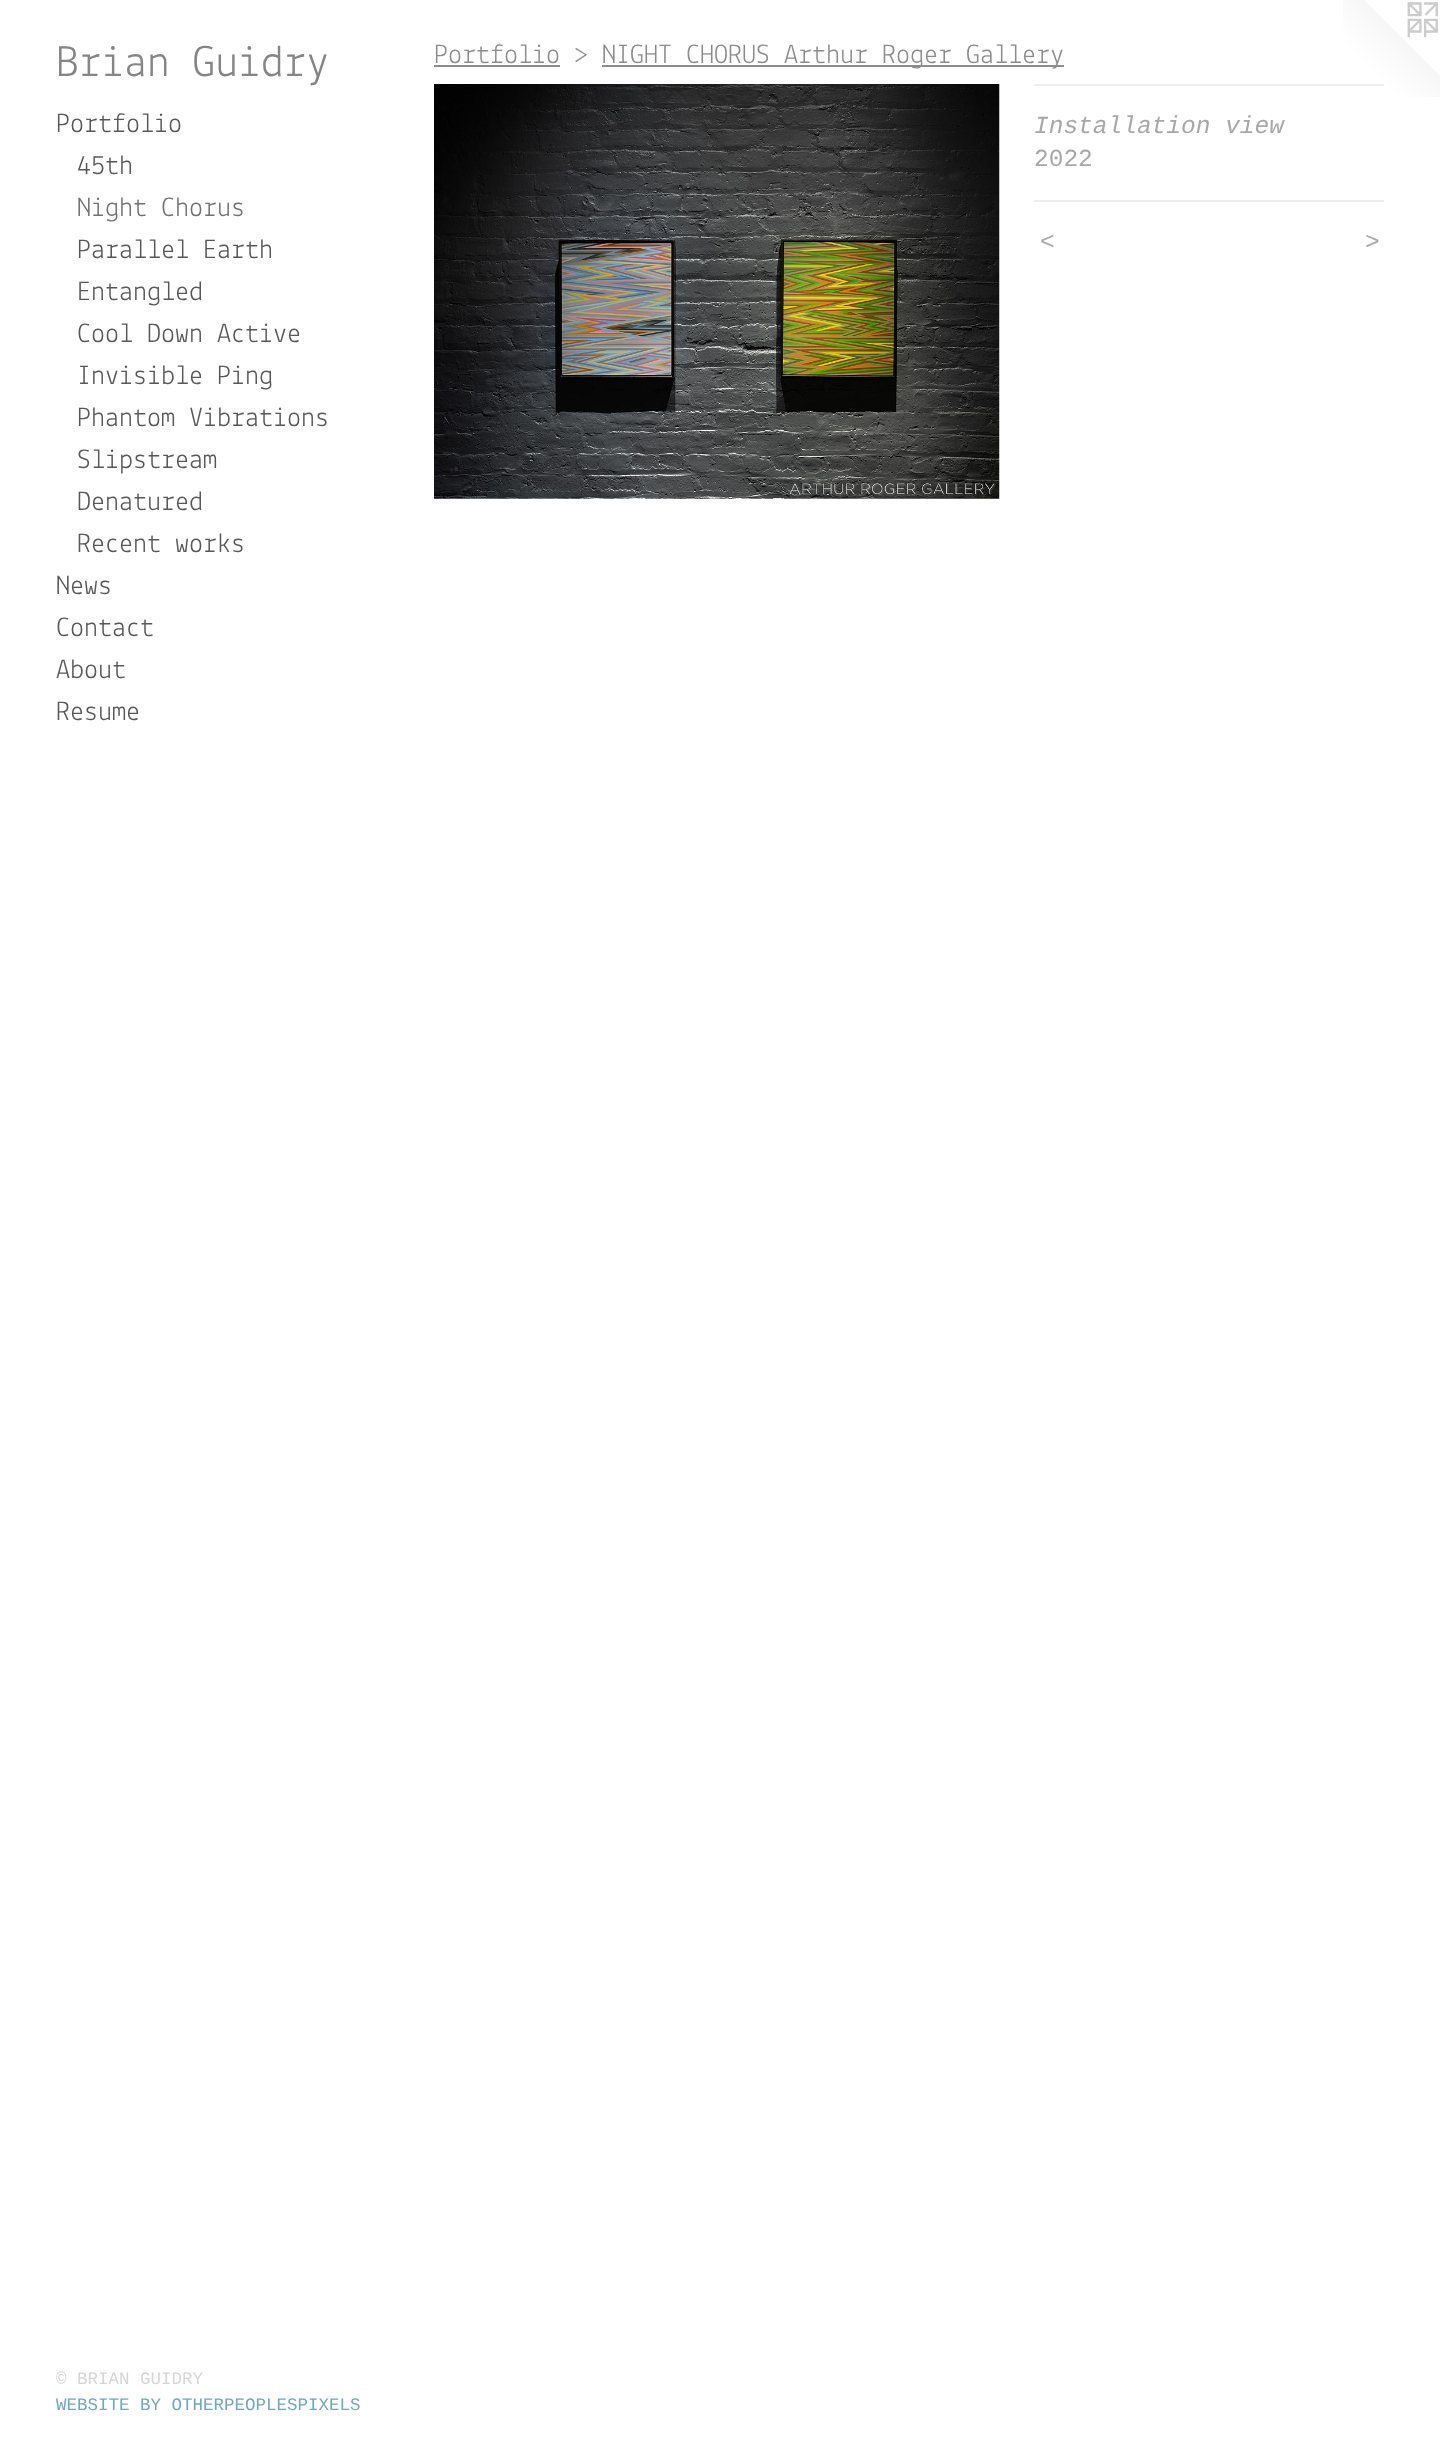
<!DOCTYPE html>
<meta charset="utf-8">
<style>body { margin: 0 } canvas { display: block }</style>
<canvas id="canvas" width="1440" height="2458"></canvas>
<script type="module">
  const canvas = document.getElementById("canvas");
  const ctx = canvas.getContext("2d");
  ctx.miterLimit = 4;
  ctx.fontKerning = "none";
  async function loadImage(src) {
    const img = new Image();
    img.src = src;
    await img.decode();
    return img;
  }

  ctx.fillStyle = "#ffffff";
  ctx.fillRect(0, 0, 1440, 2458);
  ctx.font = "45.5px Lekton";
  ctx.fillStyle = "#858585";
  ctx.fillText("Brian Guidry", 56, 76);
  ctx.font = "28px Lekton";
  ctx.fillStyle = "#585858";
  ctx.fillText("Portfolio", 56, 132);
  ctx.fillText("45th", 77, 174);
  ctx.fillStyle = "#727272";
  ctx.fillText("Night Chorus", 77, 216);
  ctx.fillStyle = "#585858";
  ctx.fillText("Parallel Earth", 77, 258);
  ctx.fillText("Entangled", 77, 300);
  ctx.fillText("Cool Down Active", 77, 342);
  ctx.fillText("Invisible Ping", 77, 384);
  ctx.fillText("Phantom Vibrations", 77, 426);
  ctx.fillText("Slipstream", 77, 468);
  ctx.fillText("Denatured", 77, 510);
  ctx.fillText("Recent works", 77, 552);
  ctx.fillText("News", 56, 594);
  ctx.fillText("Contact", 56, 636);
  ctx.fillText("About", 56, 678);
  ctx.fillText("Resume", 56, 720);
  ctx.font = "17.5px Liberation Mono";
  ctx.fillStyle = "#d6d6d6";
  ctx.fillText("© BRIAN GUIDRY", 56, 2384);
  ctx.fillStyle = "#70a8c0";
  ctx.fillText("WEBSITE BY OTHERPEOPLESPIXELS", 56, 2410);
  ctx.font = "28px Lekton";
  ctx.fillStyle = "#8c8c8c";
  ctx.fillText("Portfolio >", 434, 63);
  ctx.fillRect(434, 65, 126, 2);
  ctx.fillRect(602, 65, 462, 2);
  ctx.fillText("NIGHT CHORUS Arthur Roger Gallery", 602, 63);
  ctx.drawImage(await loadImage("img1.png"), 434, 84, 566, 415);
  ctx.drawImage(await loadImage("img2.png"), 1343, 0, 97, 97);
  ctx.fillStyle = "#eeeeee";
  ctx.fillRect(1034, 84, 350, 2);
  ctx.font = "italic 24.5px Liberation Mono";
  ctx.fillStyle = "#a8a8a8";
  ctx.fillText("Installation view", 1034, 133);
  ctx.font = "24.5px Liberation Mono";
  ctx.fillText("2022", 1034, 166);
  ctx.fillStyle = "#eeeeee";
  ctx.fillRect(1034, 200, 350, 2);
  ctx.letterSpacing = "2px";
  ctx.font = "italic 24.5px Liberation Mono";
  ctx.fillStyle = "#a8a8a8";
  ctx.fillText("<", 1040, 249);
  ctx.fillText(">", 1365, 249);
</script>
